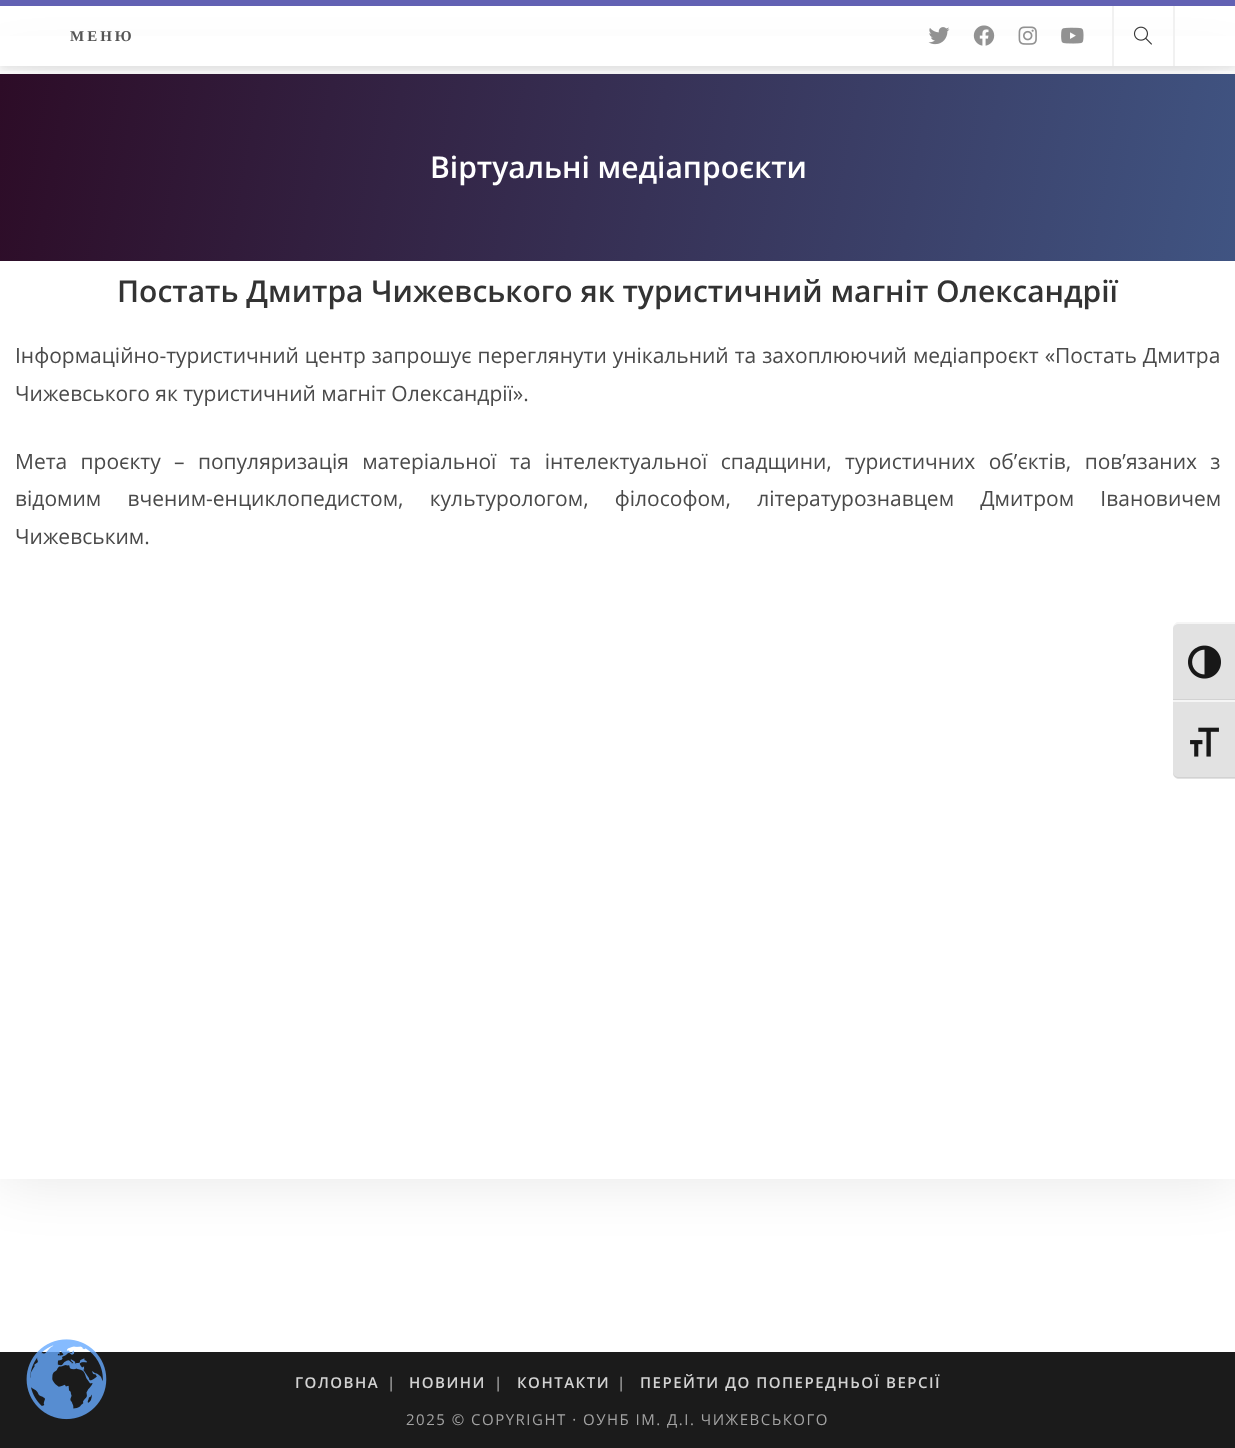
<!DOCTYPE html>
<meta charset="utf-8">
<style>body { margin: 0 } canvas { display: block }</style>
<canvas id="canvas" width="1235" height="1448"></canvas>
<script type="module">
  const canvas = document.getElementById("canvas");
  const ctx = canvas.getContext("2d");
  ctx.miterLimit = 4;
  ctx.fontKerning = "normal";
  async function loadImage(src) {
    const img = new Image();
    img.src = src;
    await img.decode();
    return img;
  }
  let gradient;

  ctx.fillStyle = "#ffffff";
  ctx.fillRect(0, 0, 1235, 1448);
  ctx.save();
  ctx.beginPath();
  ctx.moveTo(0, 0);
  ctx.lineTo(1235, 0);
  ctx.lineTo(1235, 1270);
  ctx.lineTo(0, 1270);
  ctx.closePath();
  ctx.moveTo(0, 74);
  ctx.lineTo(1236, 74);
  ctx.lineTo(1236, 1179);
  ctx.lineTo(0, 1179);
  ctx.closePath();
  ctx.clip("evenodd");
  ctx.fillStyle = "rgba(0, 0, 0, 0.1)";
  ctx.filter = "blur(30px)";
  ctx.beginPath();
  ctx.rect(0, 74, 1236, 1105);
  ctx.fill();
  ctx.filter = "none";
  ctx.restore();
  ctx.fillRect(0, 36, 1235, 30);
  gradient = ctx.createLinearGradient(2.6, 59, 1233, 276);
  gradient.addColorStop(0, "#2d0c27");
  gradient.addColorStop(1, "#405482");
  ctx.fillStyle = gradient;
  ctx.fillRect(0, 74, 1235, 187);
  ctx.save();
  ctx.beginPath();
  ctx.rect(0, 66, 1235, 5);
  ctx.clip();
  ctx.fillStyle = "rgba(0, 0, 0, 0.1)";
  ctx.filter = "blur(4px)";
  ctx.beginPath();
  ctx.rect(0, 2, 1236, 66);
  ctx.fill();
  ctx.filter = "none";
  ctx.restore();
  ctx.fillStyle = "#6261b3";
  ctx.fillRect(0, 0, 1235, 6);
  ctx.letterSpacing = "3px";
  ctx.font = "bold 15px Liberation Serif";
  ctx.fillStyle = "#555555";
  ctx.fillText("МЕНЮ", 70, 41);
  ctx.drawImage(await loadImage("img1.png"), 928, 27, 22, 18);
  ctx.drawImage(await loadImage("img2.png"), 973, 25, 22, 21);
  ctx.drawImage(await loadImage("img3.png"), 1018, 26, 19, 19);
  ctx.drawImage(await loadImage("img4.png"), 1061, 27, 23, 17);
  ctx.fillStyle = "#f1f1f1";
  ctx.fillRect(1173, 6, 2, 60);
  ctx.fillRect(1112, 6, 2, 60);
  ctx.drawImage(await loadImage("img5.png"), 1133, 26, 19, 19);
  ctx.letterSpacing = "0px";
  ctx.font = "600 30px Open Sans";
  ctx.fillStyle = "#ffffff";
  ctx.fillText("Віртуальні медіапроєкти", 430, 178);
  ctx.fillStyle = "#333333";
  ctx.fillText("Постать Дмитра Чижевського як туристичний магніт Олександрії", 117, 302);
  ctx.wordSpacing = "0.5px";
  ctx.font = "21px Open Sans";
  ctx.fillStyle = "#4a4a4a";
  ctx.fillText("Інформаційно-туристичний центр запрошує переглянути унікальний та захоплюючий медіапроєкт «Постать Дмитра", 15, 363);
  ctx.wordSpacing = "0px";
  ctx.fillText("Чижевського як туристичний магніт Олександрії».", 15, 401);
  ctx.wordSpacing = "7.9px";
  ctx.fillText("Мета проєкту – популяризація матеріальної та інтелектуальної спадщини, туристичних об’єктів, пов’язаних з", 15, 469);
  ctx.wordSpacing = "20.75px";
  ctx.fillText("відомим вченим-енциклопедистом, культурологом, філософом, літературознавцем Дмитром Івановичем", 15, 506);
  ctx.wordSpacing = "0px";
  ctx.fillText("Чижевським.", 15, 544);
  ctx.fillStyle = "#1b1b1b";
  ctx.fillRect(0, 1352, 1235, 96);
  ctx.letterSpacing = "1.5px";
  ctx.font = "600 15px Open Sans";
  ctx.fillStyle = "#d3d3d3";
  ctx.fillText("ГОЛОВНА", 295, 1388);
  ctx.fillStyle = "#a3a3a3";
  ctx.fillText("|", 387, 1388);
  ctx.fillStyle = "#d3d3d3";
  ctx.fillText("НОВИНИ", 409, 1388);
  ctx.fillStyle = "#a3a3a3";
  ctx.fillText("|", 494, 1388);
  ctx.fillStyle = "#d3d3d3";
  ctx.fillText("КОНТАКТИ", 517, 1388);
  ctx.fillStyle = "#a3a3a3";
  ctx.fillText("|", 617, 1388);
  ctx.fillStyle = "#d3d3d3";
  ctx.fillText("ПЕРЕЙТИ ДО ПОПЕРЕДНЬОЇ ВЕРСІЇ", 640, 1388);
  ctx.font = "15px Open Sans";
  ctx.fillStyle = "#a3a3a3";
  ctx.fillText("2025 © COPYRIGHT · ОУНБ ІМ. Д.І. ЧИЖЕВСЬКОГО", 406, 1425);
  ctx.fillStyle = "#e2e2e2";
  ctx.beginPath();
  ctx.moveTo(1179, 623);
  ctx.lineTo(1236, 623);
  ctx.lineTo(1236, 701);
  ctx.lineTo(1173, 701);
  ctx.lineTo(1173, 629);
  ctx.bezierCurveTo(1173, 625.5, 1175.5, 623, 1179, 623);
  ctx.closePath();
  ctx.fill();
  ctx.fillStyle = "#f5f5f5";
  ctx.beginPath();
  ctx.moveTo(1179, 624);
  ctx.bezierCurveTo(1176, 624, 1173, 626, 1173, 628);
  ctx.bezierCurveTo(1173, 626, 1175, 623, 1177, 622);
  ctx.lineTo(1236, 622);
  ctx.lineTo(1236, 624);
  ctx.closePath();
  ctx.fill();
  ctx.fillStyle = "#d2d2d2";
  ctx.fillRect(1173, 699, 62, 1);
  ctx.drawImage(await loadImage("img6.png"), 1188, 645, 33, 34);
  ctx.fillStyle = "#e2e2e2";
  ctx.beginPath();
  ctx.moveTo(1173, 701);
  ctx.lineTo(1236, 701);
  ctx.lineTo(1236, 779);
  ctx.lineTo(1179, 779);
  ctx.bezierCurveTo(1175.5, 779, 1173, 776.5, 1173, 773);
  ctx.closePath();
  ctx.fill();
  ctx.fillStyle = "#f5f5f5";
  ctx.fillRect(1173, 700, 62, 2);
  ctx.fillStyle = "#d2d2d2";
  ctx.beginPath();
  ctx.moveTo(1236, 778);
  ctx.lineTo(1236, 777);
  ctx.lineTo(1179, 777);
  ctx.bezierCurveTo(1176, 777, 1173, 775, 1173, 772);
  ctx.bezierCurveTo(1173, 776, 1176, 778, 1179, 778);
  ctx.closePath();
  ctx.fill();
  ctx.drawImage(await loadImage("img7.png"), 1190, 727, 29, 30);
  ctx.drawImage(await loadImage("img8.png"), 26, 1339, 81, 81);
</script>
